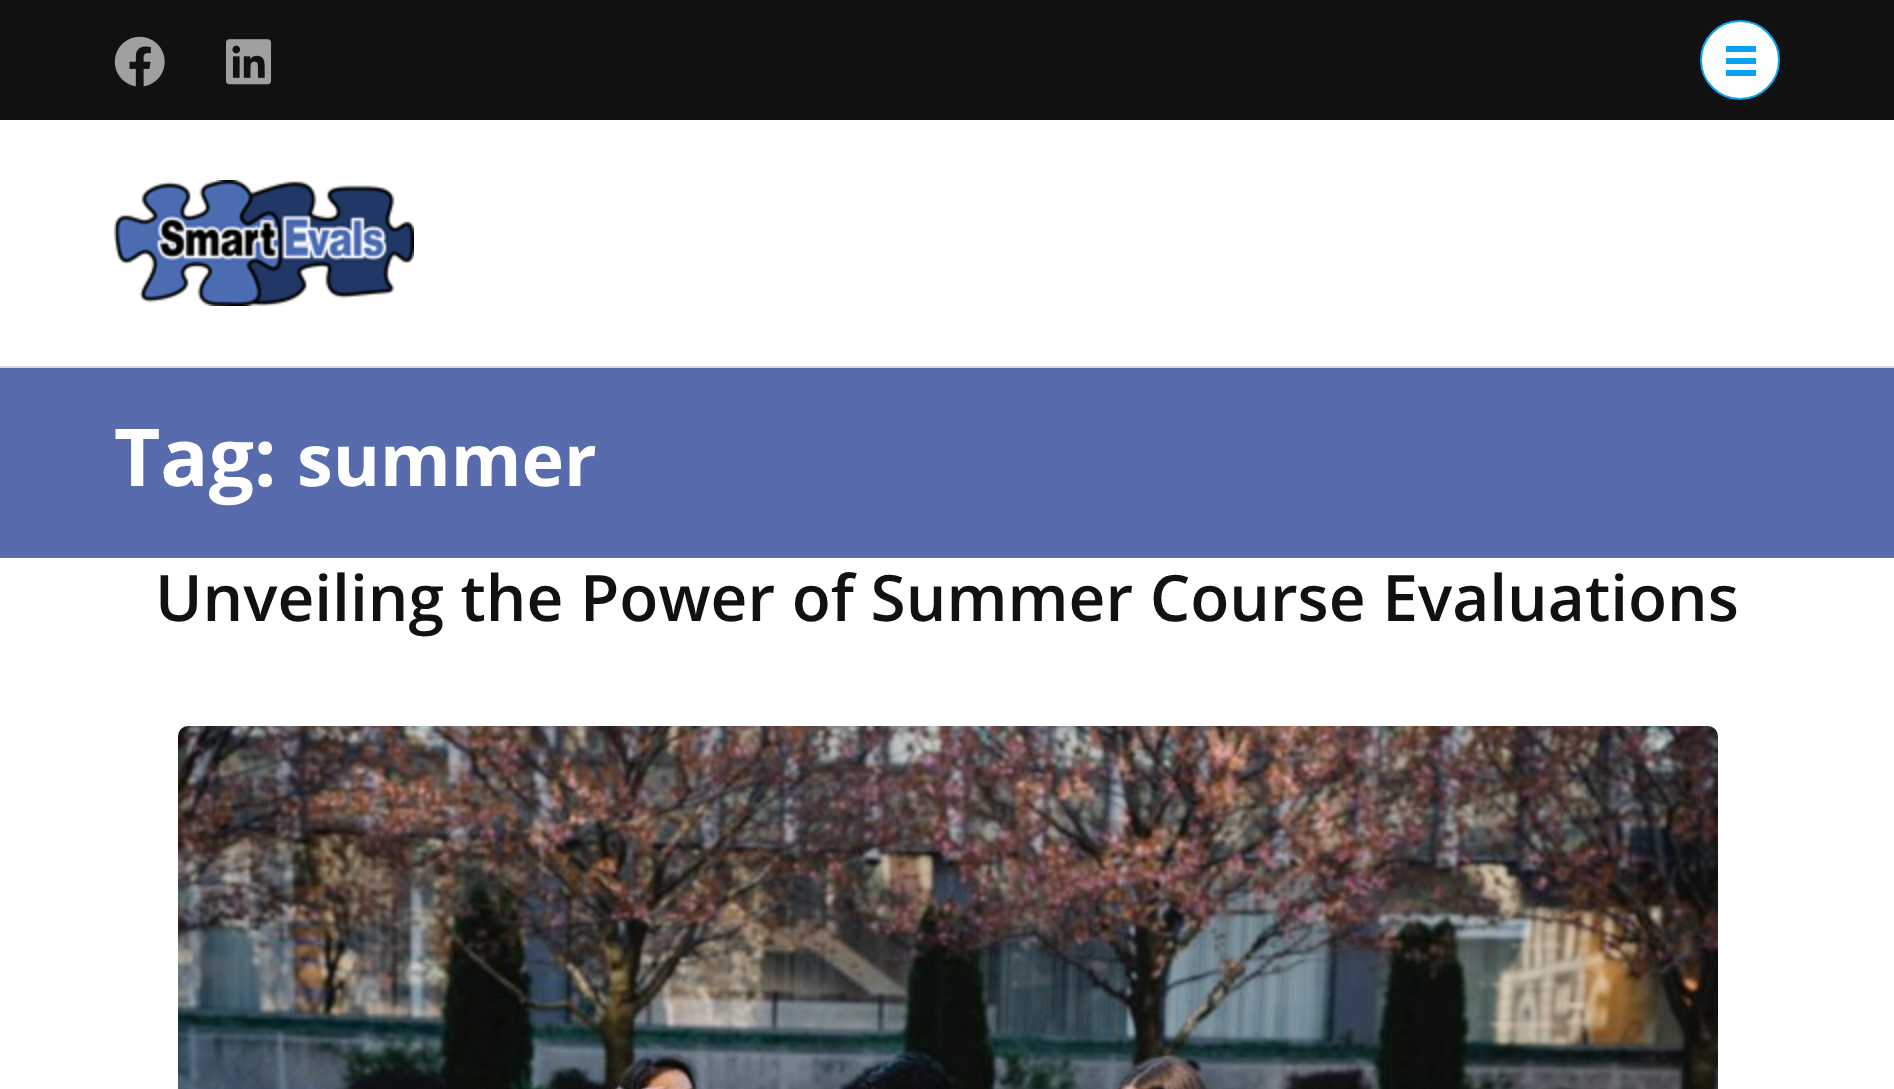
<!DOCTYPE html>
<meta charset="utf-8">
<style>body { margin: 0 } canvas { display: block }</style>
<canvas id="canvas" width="1894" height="1089"></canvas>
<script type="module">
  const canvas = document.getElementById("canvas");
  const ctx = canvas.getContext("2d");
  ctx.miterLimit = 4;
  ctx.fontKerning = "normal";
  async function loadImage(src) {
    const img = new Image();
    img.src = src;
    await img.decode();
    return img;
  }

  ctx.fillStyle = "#ffffff";
  ctx.fillRect(0, 0, 1894, 1089);
  ctx.fillStyle = "#111111";
  ctx.fillRect(0, 0, 1894, 120);
  ctx.drawImage(await loadImage("img1.png"), 114, 36, 51, 51);
  ctx.drawImage(await loadImage("img2.png"), 226, 39, 46, 46);
  ctx.fillStyle = "#ffffff";
  ctx.beginPath();
  ctx.arc(1740, 60, 39, 0, Math.PI * 2);
  ctx.fill();
  ctx.strokeStyle = "#0aa3f3";
  ctx.lineWidth = 2;
  ctx.stroke();
  ctx.fillStyle = "#0aa3f3";
  ctx.fillRect(1726, 46, 30, 6);
  ctx.fillRect(1726, 58, 30, 6);
  ctx.fillRect(1726, 70, 30, 6);
  ctx.fillStyle = "#dbdbdb";
  ctx.fillRect(0, 366, 1894, 2);
  ctx.drawImage(await loadImage("img3.png"), 114, 180, 300, 126);
  ctx.fillStyle = "#576bad";
  ctx.fillRect(0, 368, 1894, 190);
  ctx.font = "bold 80px Open Sans";
  ctx.fillStyle = "#ffffff";
  ctx.fillText("Tag:", 114, 486);
  ctx.font = "bold 72px Open Sans";
  ctx.fillText("summer", 297, 486);
  ctx.font = "600 64px Open Sans";
  ctx.fillStyle = "#111111";
  ctx.fillText("Unveiling the Power of Summer Course Evaluations", 155, 621);
  ctx.drawImage(await loadImage("img4.png"), 178, 726, 1540, 363);
</script>
